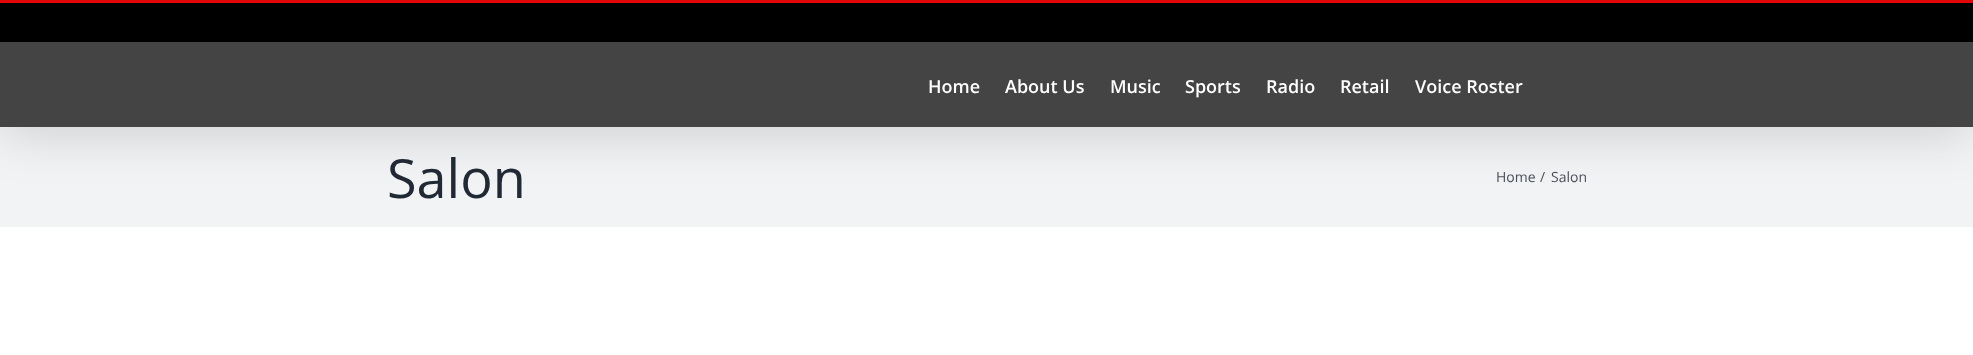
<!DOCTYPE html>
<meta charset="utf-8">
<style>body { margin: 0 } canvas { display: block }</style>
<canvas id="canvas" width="1973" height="355"></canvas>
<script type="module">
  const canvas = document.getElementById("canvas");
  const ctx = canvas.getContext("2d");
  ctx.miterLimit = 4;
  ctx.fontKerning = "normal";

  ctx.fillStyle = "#ffffff";
  ctx.fillRect(0, 0, 1973, 355);
  ctx.fillStyle = "#f2f3f5";
  ctx.fillRect(0, 127, 1973, 100);
  ctx.fillStyle = "rgba(0, 0, 0, 0.14)";
  ctx.filter = "blur(25px)";
  ctx.beginPath();
  ctx.rect(2, 12, 1969, 123);
  ctx.fill();
  ctx.filter = "none";
  ctx.fillStyle = "#000000";
  ctx.fillRect(0, 3, 1973, 39);
  ctx.fillStyle = "#e10707";
  ctx.fillRect(0, 0, 1973, 3);
  ctx.fillStyle = "#444444";
  ctx.fillRect(0, 42, 1973, 85);
  ctx.font = "600 18px Open Sans";
  ctx.fillStyle = "#ffffff";
  ctx.fillText("Home", 928, 93);
  ctx.fillText("About Us", 1005, 93);
  ctx.fillText("Music", 1110, 93);
  ctx.fillText("Sports", 1185, 93);
  ctx.fillText("Radio", 1266, 93);
  ctx.fillText("Retail", 1340, 93);
  ctx.fillText("Voice Roster", 1415, 93);
  ctx.font = "54px Open Sans";
  ctx.fillStyle = "#212934";
  ctx.fillText("Salon", 387, 198);
  ctx.font = "14px Open Sans";
  ctx.fillStyle = "#4a4e57";
  ctx.fillText("Home", 1496, 182);
  ctx.fillText("/", 1540, 182);
  ctx.fillText("Salon", 1551, 182);
</script>
